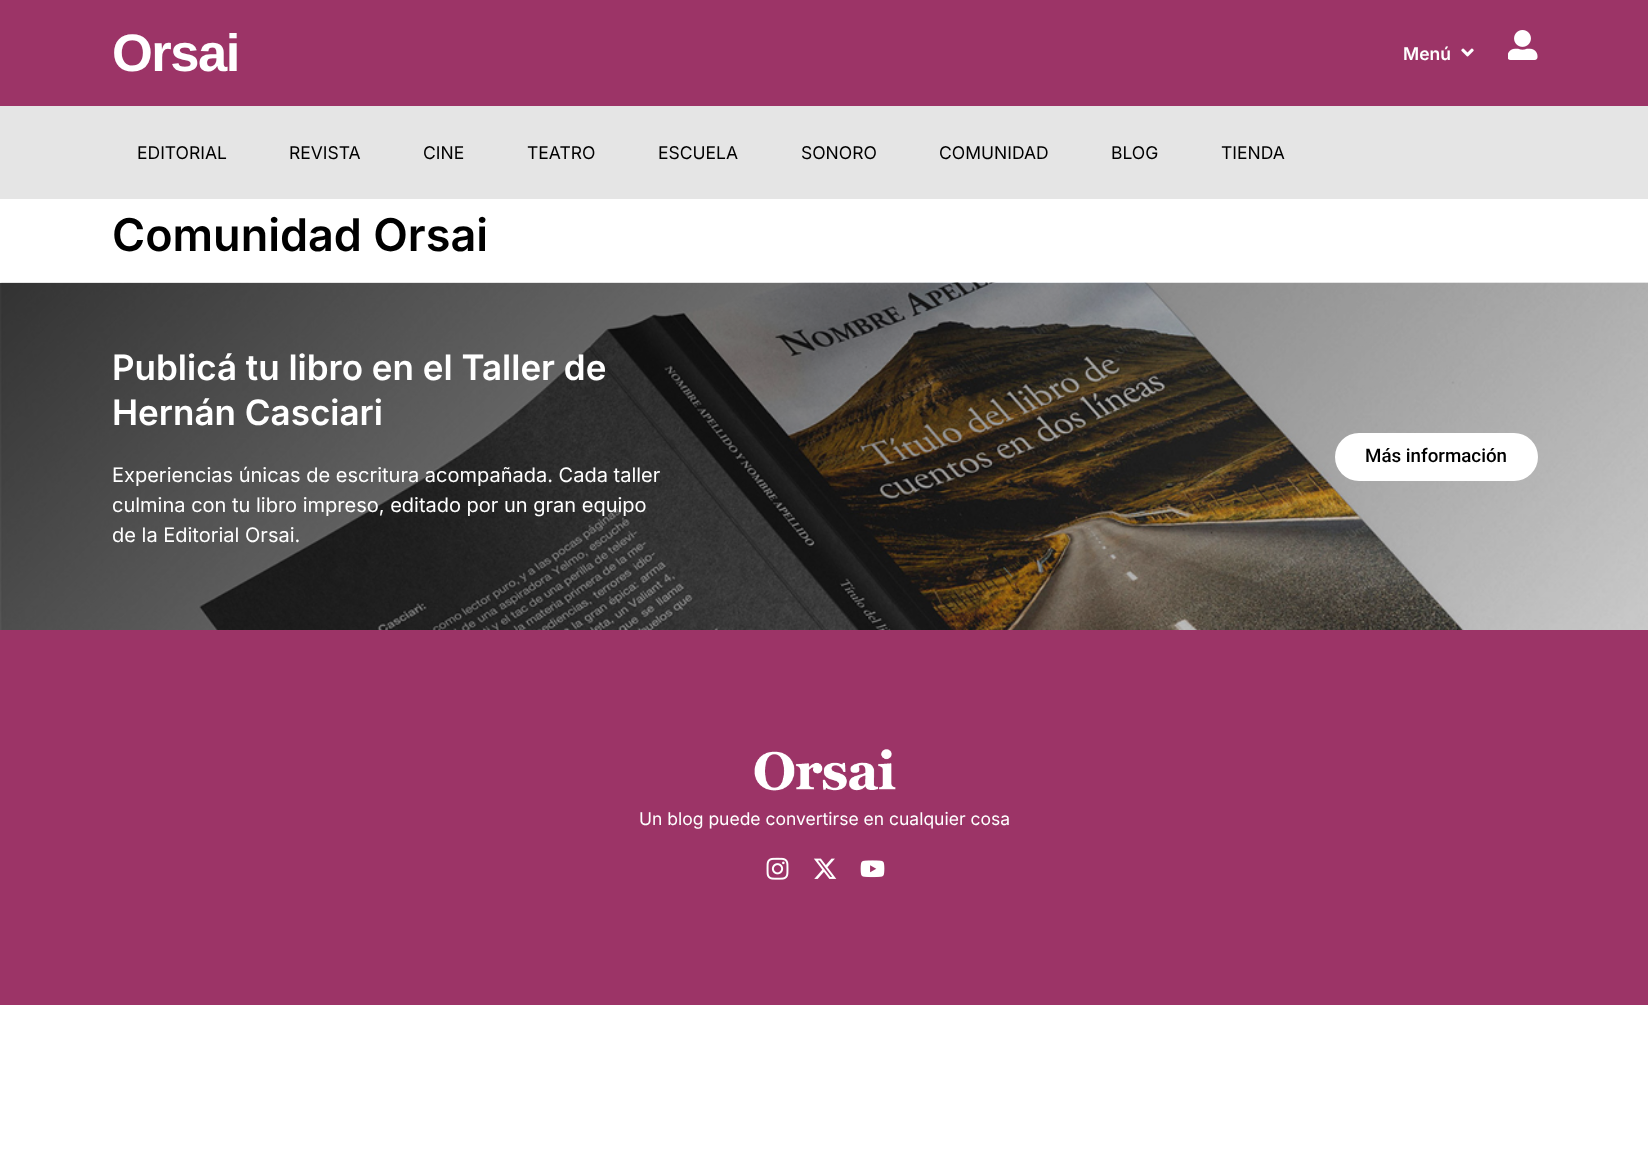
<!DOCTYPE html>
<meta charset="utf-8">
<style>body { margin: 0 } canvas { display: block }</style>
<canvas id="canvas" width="1648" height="1168"></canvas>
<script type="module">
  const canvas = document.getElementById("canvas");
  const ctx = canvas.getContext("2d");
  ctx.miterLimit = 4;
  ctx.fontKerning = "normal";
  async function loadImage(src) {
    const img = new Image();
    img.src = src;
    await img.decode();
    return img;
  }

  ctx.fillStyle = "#ffffff";
  ctx.fillRect(0, 0, 1648, 1168);
  ctx.fillStyle = "#9c3467";
  ctx.fillRect(0, 0, 1648, 106);
  ctx.letterSpacing = "-1.5px";
  ctx.font = "bold 52.5px Liberation Sans";
  ctx.fillStyle = "#ffffff";
  ctx.fillText("Orsai", 112, 71);
  ctx.letterSpacing = "0px";
  ctx.font = "600 17.5px Inter";
  ctx.fillText("Menú", 1403, 60);
  ctx.drawImage(await loadImage("img1.png"), 1461, 48, 13, 9);
  ctx.drawImage(await loadImage("img2.png"), 1508, 30, 30, 30);
  ctx.fillStyle = "#e5e5e5";
  ctx.fillRect(0, 106, 1648, 93);
  ctx.font = "17.5px Inter";
  ctx.fillStyle = "#000000";
  ctx.fillText("EDITORIAL", 137, 159);
  ctx.fillText("REVISTA", 289, 159);
  ctx.fillText("CINE", 423, 159);
  ctx.fillText("TEATRO", 527, 159);
  ctx.fillText("ESCUELA", 658, 159);
  ctx.fillText("SONORO", 801, 159);
  ctx.fillText("COMUNIDAD", 939, 159);
  ctx.fillText("BLOG", 1111, 159);
  ctx.fillText("TIENDA", 1221, 159);
  ctx.font = "600 45px Inter";
  ctx.fillText("Comunidad Orsai", 112, 251);
  ctx.drawImage(await loadImage("img3.png"), 0, 282, 1648, 348);
  ctx.font = "600 35px Inter";
  ctx.fillStyle = "#ffffff";
  ctx.fillText("Publicá tu libro en el Taller de", 112, 380);
  ctx.fillText("Hernán Casciari", 112, 425);
  ctx.font = "20px Inter";
  ctx.fillText("Experiencias únicas de escritura acompañada. Cada taller", 112, 482);
  ctx.fillText("culmina con tu libro impreso, editado por un gran equipo", 112, 512);
  ctx.fillText("de la Editorial Orsai.", 112, 542);
  ctx.beginPath();
  ctx.roundRect(1335, 433, 203, 48, 24);
  ctx.fill();
  ctx.font = "500 18.75px Roboto";
  ctx.fillStyle = "#000000";
  ctx.fillText("Más información", 1365, 462);
  ctx.fillStyle = "#9c3467";
  ctx.fillRect(0, 630, 1648, 375);
  ctx.drawImage(await loadImage("img4.png"), 754, 749, 142, 42);
  ctx.font = "17.5px Inter";
  ctx.fillStyle = "#ffffff";
  ctx.fillText("Un blog puede convertirse en cualquier cosa", 639, 825);
  ctx.drawImage(await loadImage("img5.png"), 766, 857, 23, 23);
  ctx.drawImage(await loadImage("img6.png"), 813, 858, 24, 21);
  ctx.drawImage(await loadImage("img7.png"), 860, 860, 25, 18);
</script>
